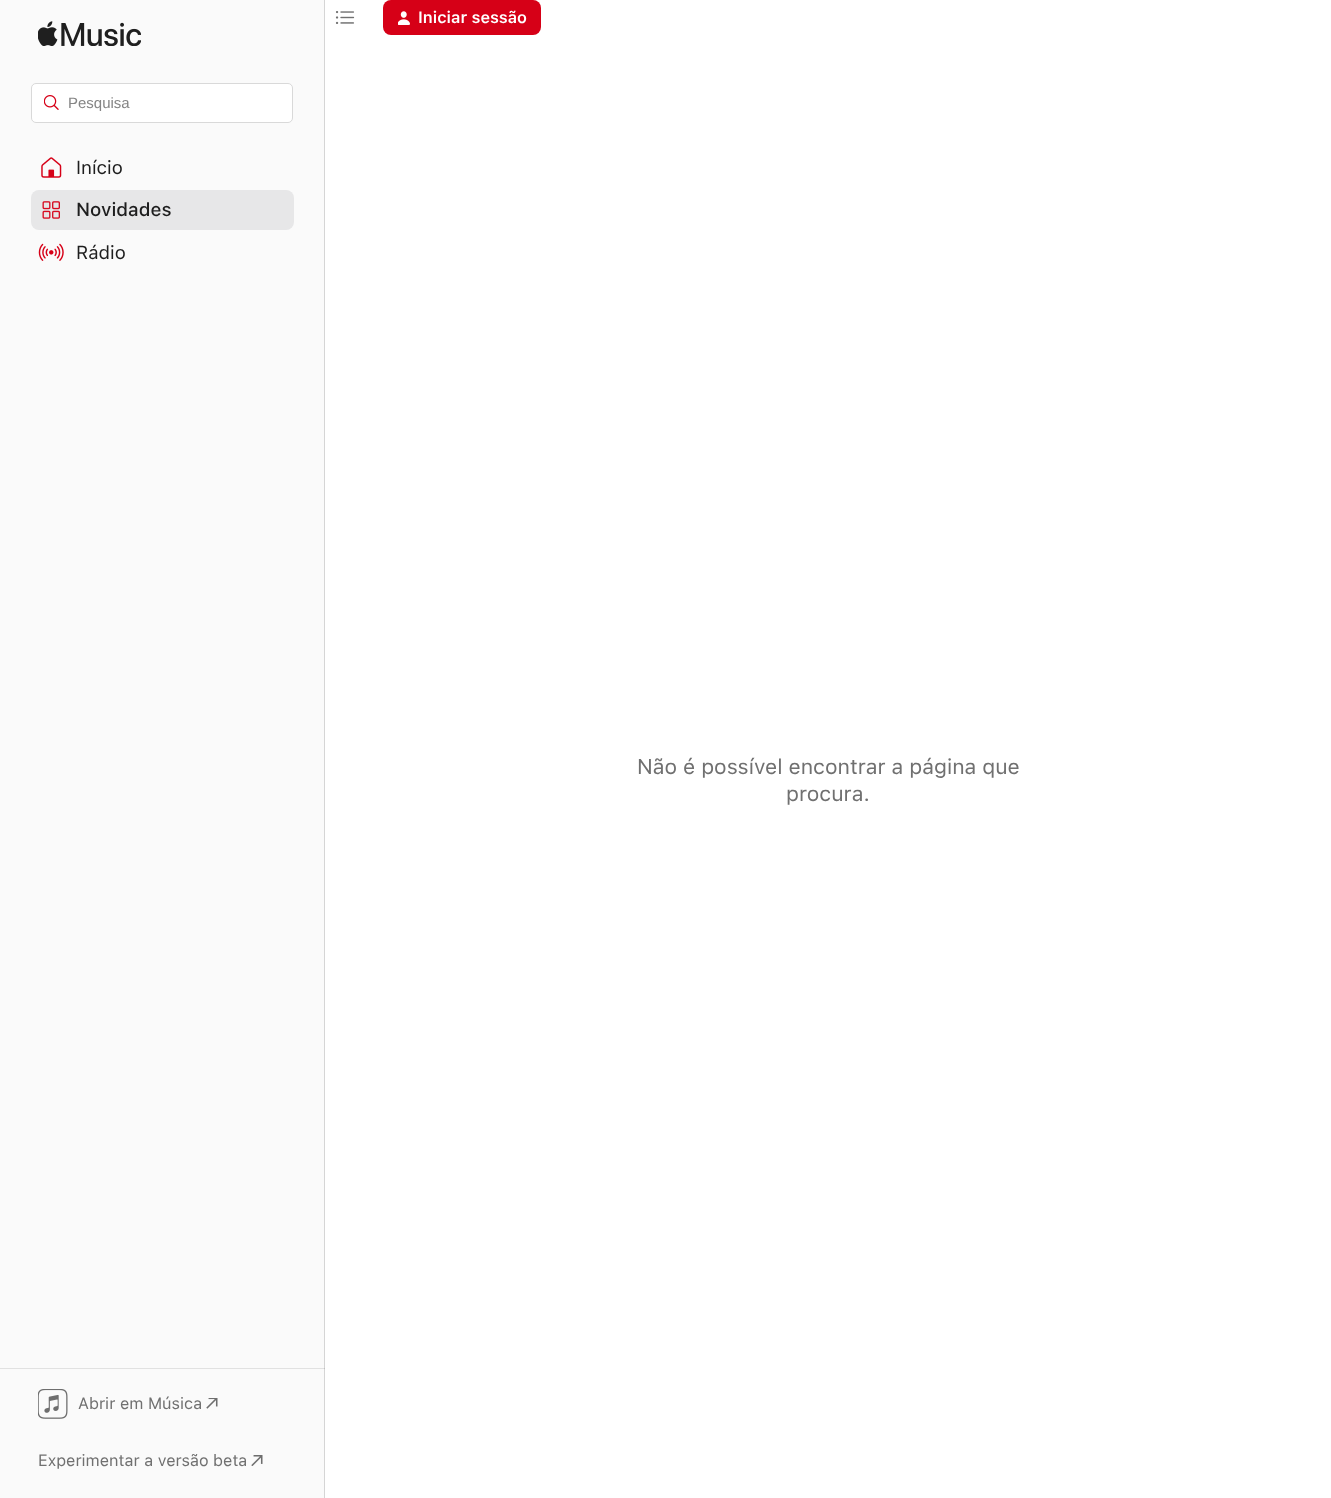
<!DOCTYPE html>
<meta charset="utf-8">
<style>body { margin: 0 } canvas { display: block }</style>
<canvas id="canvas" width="1331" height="1498"></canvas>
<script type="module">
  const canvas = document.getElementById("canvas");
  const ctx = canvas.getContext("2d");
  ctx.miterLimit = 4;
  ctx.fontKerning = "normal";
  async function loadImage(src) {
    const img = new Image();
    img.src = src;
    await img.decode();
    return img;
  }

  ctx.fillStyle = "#ffffff";
  ctx.fillRect(0, 0, 1331, 1498);
  ctx.drawImage(await loadImage("img1.png"), 335, 11, 20, 13);
  ctx.fillStyle = "#d60017";
  ctx.beginPath();
  ctx.roundRect(383, 0, 158, 35, 8);
  ctx.fill();
  ctx.drawImage(await loadImage("img2.png"), 398, 11, 12, 14);
  ctx.font = "600 16.25px SF";
  ctx.fillStyle = "#ffffff";
  ctx.fillText("Iniciar sessão", 418, 23);
  ctx.fillStyle = "#fafafa";
  ctx.fillRect(0, 0, 324, 1498);
  ctx.fillStyle = "#e1e1e1";
  ctx.fillRect(0, 1368, 325, 1);
  ctx.fillStyle = "#d5d5d5";
  ctx.fillRect(324, 0, 1, 1498);
  ctx.fillStyle = "#c0c0c0";
  ctx.fillRect(324, 1368, 1, 1);
  ctx.drawImage(await loadImage("img3.png"), 38, 21, 103, 25);
  ctx.fillStyle = "#ffffff";
  ctx.beginPath();
  ctx.roundRect(31.5, 83.5, 261, 39, 4.5);
  ctx.fill();
  ctx.strokeStyle = "#d9d9d9";
  ctx.stroke();
  ctx.drawImage(await loadImage("img4.png"), 44, 95, 15, 15);
  ctx.font = "15px Liberation Sans";
  ctx.fillStyle = "#858585";
  ctx.fillText("Pesquisa", 68, 108);
  ctx.drawImage(await loadImage("img5.png"), 41, 157, 21, 21);
  ctx.font = "18.75px SF";
  ctx.fillStyle = "#1e1e1e";
  ctx.fillText("Início", 76, 174);
  ctx.fillStyle = "#e7e7e8";
  ctx.beginPath();
  ctx.roundRect(31, 190, 263, 40, 8);
  ctx.fill();
  ctx.drawImage(await loadImage("img6.png"), 42, 201, 18, 18);
  ctx.font = "500 18.75px SF";
  ctx.fillStyle = "#1e1e1e";
  ctx.fillText("Novidades", 76, 216);
  ctx.drawImage(await loadImage("img7.png"), 38, 243, 26, 18);
  ctx.font = "18.75px SF";
  ctx.fillText("Rádio", 76, 259);
  ctx.drawImage(await loadImage("img8.png"), 38, 1389, 30, 30);
  ctx.font = "16.25px SF";
  ctx.fillStyle = "#707070";
  ctx.fillText("Abrir em Música", 78, 1409);
  ctx.drawImage(await loadImage("img9.png"), 206, 1398, 12, 11);
  ctx.fillText("Experimentar a versão beta", 38, 1466);
  ctx.drawImage(await loadImage("img10.png"), 251, 1455, 12, 11);
  ctx.font = "21.25px SF";
  ctx.fillText("Não é possível encontrar a página que", 637, 774);
  ctx.fillText("procura.", 786, 801);
</script>
